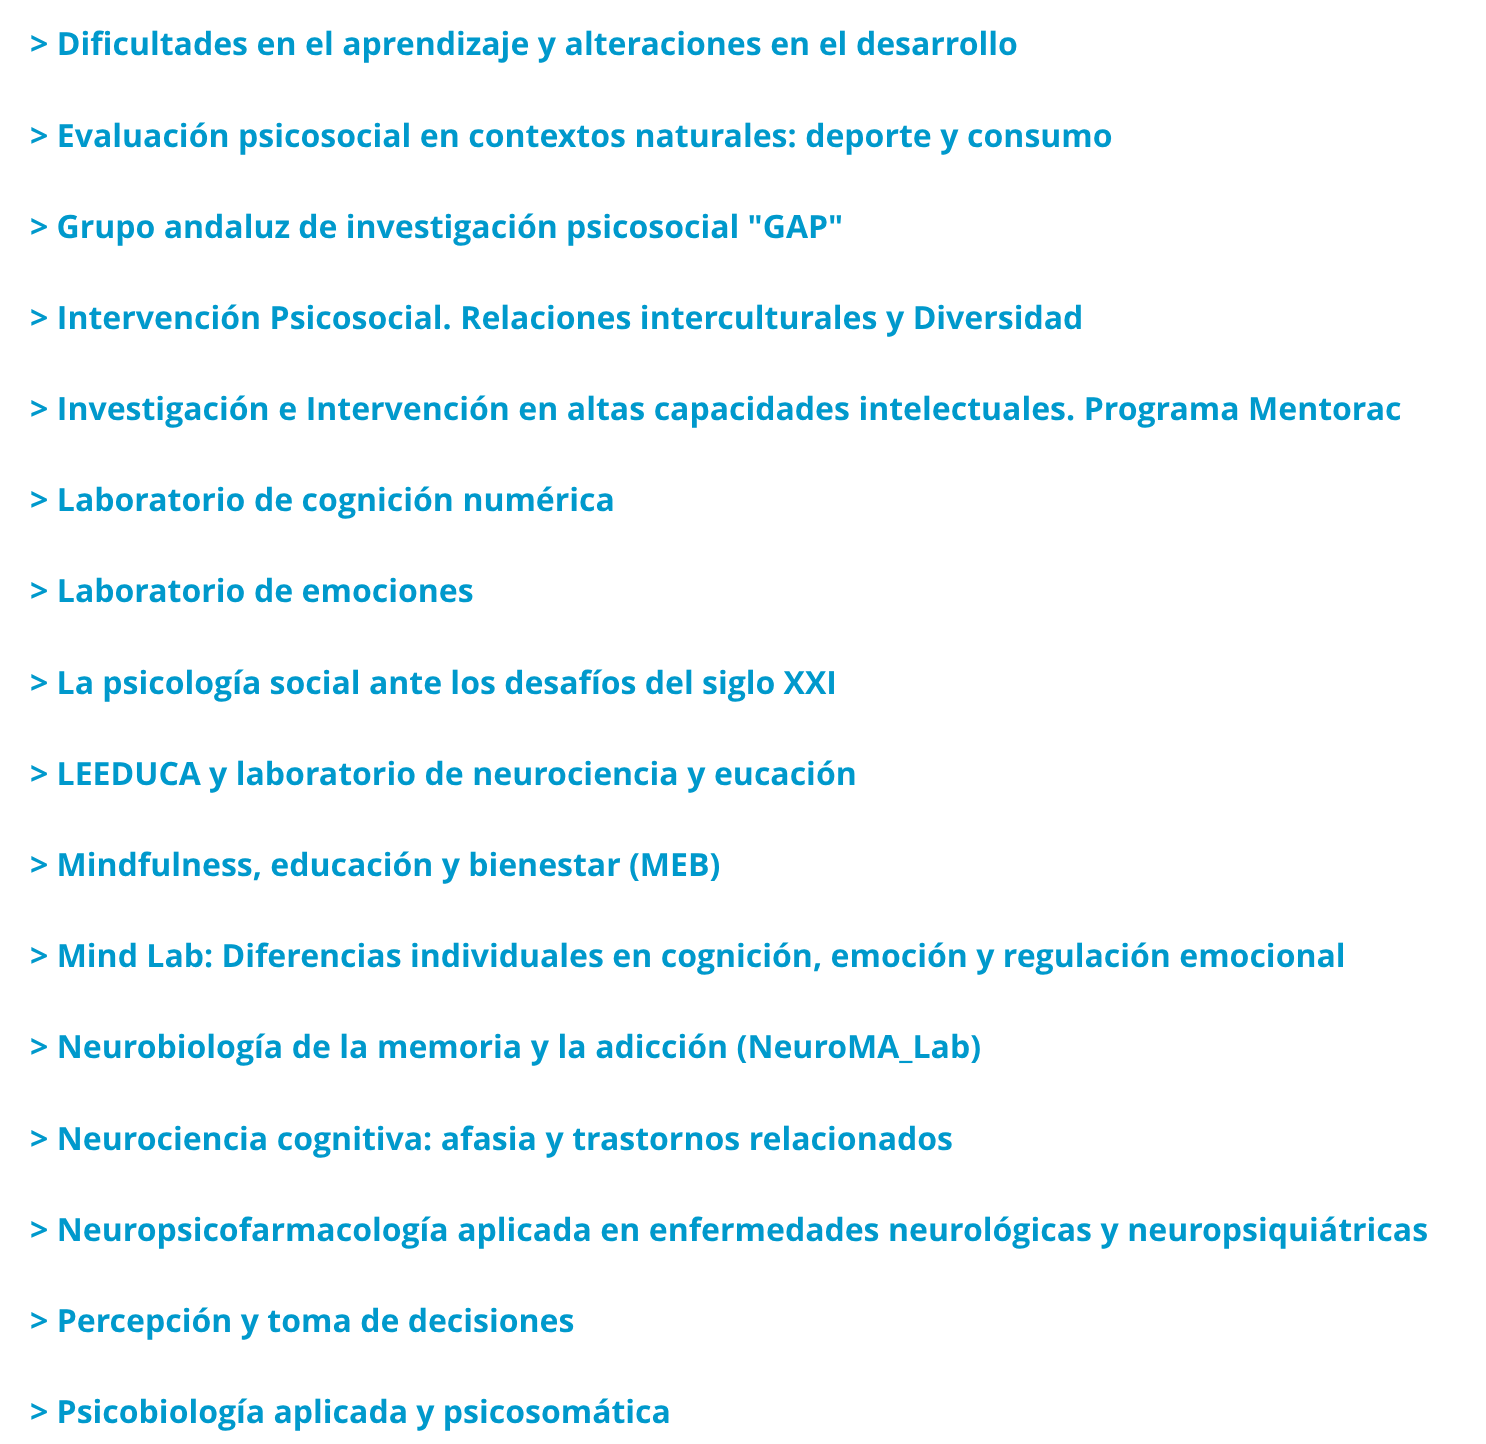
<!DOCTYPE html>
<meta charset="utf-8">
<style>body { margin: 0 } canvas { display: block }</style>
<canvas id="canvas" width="1486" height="1444"></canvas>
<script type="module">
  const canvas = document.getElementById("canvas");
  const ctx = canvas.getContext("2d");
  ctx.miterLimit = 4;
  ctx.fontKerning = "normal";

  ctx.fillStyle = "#ffffff";
  ctx.fillRect(0, 0, 1486, 1444);
  ctx.wordSpacing = "0.25px";
  ctx.font = "bold 32px Open Sans";
  ctx.fillStyle = "#0099cc";
  ctx.fillText("> Dificultades en el aprendizaje y alteraciones en el desarrollo", 30, 55);
  ctx.fillText("> Evaluación psicosocial en contextos naturales: deporte y consumo", 30, 147);
  ctx.wordSpacing = "0px";
  ctx.fillText("> Grupo andaluz de investigación psicosocial \"GAP\"", 30, 238);
  ctx.wordSpacing = "0.25px";
  ctx.fillText("> Intervención Psicosocial. Relaciones interculturales y Diversidad", 30, 329);
  ctx.fillText("> Investigación e Intervención en altas capacidades intelectuales. Programa Mentorac", 30, 420);
  ctx.fillText("> Laboratorio de cognición numérica", 30, 511);
  ctx.fillText("> Laboratorio de emociones", 30, 602);
  ctx.wordSpacing = "0px";
  ctx.fillText("> La psicología social ante los desafíos del siglo XXI", 30, 694);
  ctx.fillText("> LEEDUCA", 30, 785);
  ctx.wordSpacing = "0.25px";
  ctx.fillText("y laboratorio de neurociencia y eucación", 209, 785);
  ctx.wordSpacing = "0px";
  ctx.fillText("> Mindfulness, educación y bienestar (MEB)", 30, 876);
  ctx.wordSpacing = "0.1px";
  ctx.fillText("> Mind Lab: Diferencias individuales en cognición, emoción y regulación emocional", 30, 967);
  ctx.wordSpacing = "0.25px";
  ctx.fillText("> Neurobiología de la memoria y la adicción (NeuroMA_Lab)", 30, 1058);
  ctx.fillText("> Neurociencia cognitiva: afasia y trastornos relacionados", 30, 1150);
  ctx.fillText("> Neuropsicofarmacología aplicada en enfermedades neurológicas y neuropsiquiátricas", 30, 1241);
  ctx.wordSpacing = "0.1px";
  ctx.fillText("> Percepción y toma de decisiones", 30, 1332);
  ctx.wordSpacing = "0px";
  ctx.fillText("> Psicobiología aplicada y psicosomática", 30, 1423);
</script>
